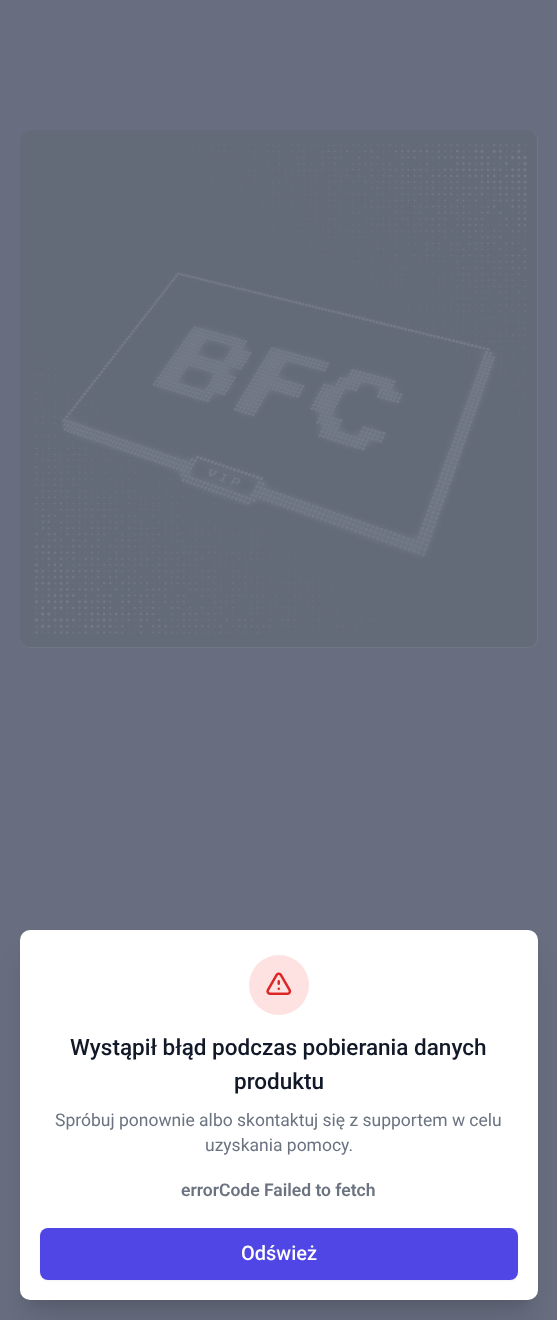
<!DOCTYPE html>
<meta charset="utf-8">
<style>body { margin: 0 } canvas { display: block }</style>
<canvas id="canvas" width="557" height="1320"></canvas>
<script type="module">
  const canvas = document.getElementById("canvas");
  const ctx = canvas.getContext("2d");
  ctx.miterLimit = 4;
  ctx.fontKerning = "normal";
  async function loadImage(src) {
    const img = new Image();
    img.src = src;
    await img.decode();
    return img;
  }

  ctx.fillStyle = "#686e80";
  ctx.fillRect(0, 0, 557, 1320);
  ctx.fillStyle = "#747a88";
  ctx.beginPath();
  ctx.roundRect(20, 130, 518, 518, 10);
  ctx.fill();
  ctx.drawImage(await loadImage("img1.png"), 20, 130, 518, 518);
  ctx.fillStyle = "rgba(0, 0, 0, 0.1)";
  ctx.filter = "blur(6px)";
  ctx.beginPath();
  ctx.roundRect(28, 948, 502, 355, 2.5);
  ctx.fill();
  ctx.filter = "none";
  ctx.filter = "blur(15.5px)";
  ctx.beginPath();
  ctx.roundRect(26, 961, 505, 358, 4);
  ctx.fill();
  ctx.filter = "none";
  ctx.fillStyle = "#ffffff";
  ctx.beginPath();
  ctx.roundRect(20, 930, 518, 370, 10);
  ctx.fill();
  ctx.fillStyle = "#fee2e2";
  ctx.beginPath();
  ctx.arc(279, 985, 30, 0, Math.PI * 2);
  ctx.fill();
  ctx.drawImage(await loadImage("img2.png"), 266, 972, 26, 23);
  ctx.font = "500 22.5px Roboto";
  ctx.fillStyle = "#111827";
  ctx.fillText("Wystąpił błąd podczas pobierania danych", 70, 1055);
  ctx.fillText("produktu", 234, 1089);
  ctx.font = "17.5px Roboto";
  ctx.fillStyle = "#6b7280";
  ctx.fillText("Spróbuj ponownie albo skontaktuj się z supportem w celu", 55, 1126);
  ctx.fillText("uzyskania pomocy.", 205, 1151);
  ctx.font = "600 17.5px Roboto";
  ctx.fillText("errorCode Failed to fetch", 181, 1196);
  ctx.fillStyle = "rgba(0, 0, 0, 0.05)";
  ctx.filter = "blur(1px)";
  ctx.beginPath();
  ctx.roundRect(40, 1229, 478, 52, 8);
  ctx.fill();
  ctx.filter = "none";
  ctx.fillStyle = "#4f46e5";
  ctx.beginPath();
  ctx.roundRect(40, 1228, 478, 52, 8);
  ctx.fill();
  ctx.font = "500 20px Roboto";
  ctx.fillStyle = "#ffffff";
  ctx.fillText("Odśwież", 241, 1260);
</script>
